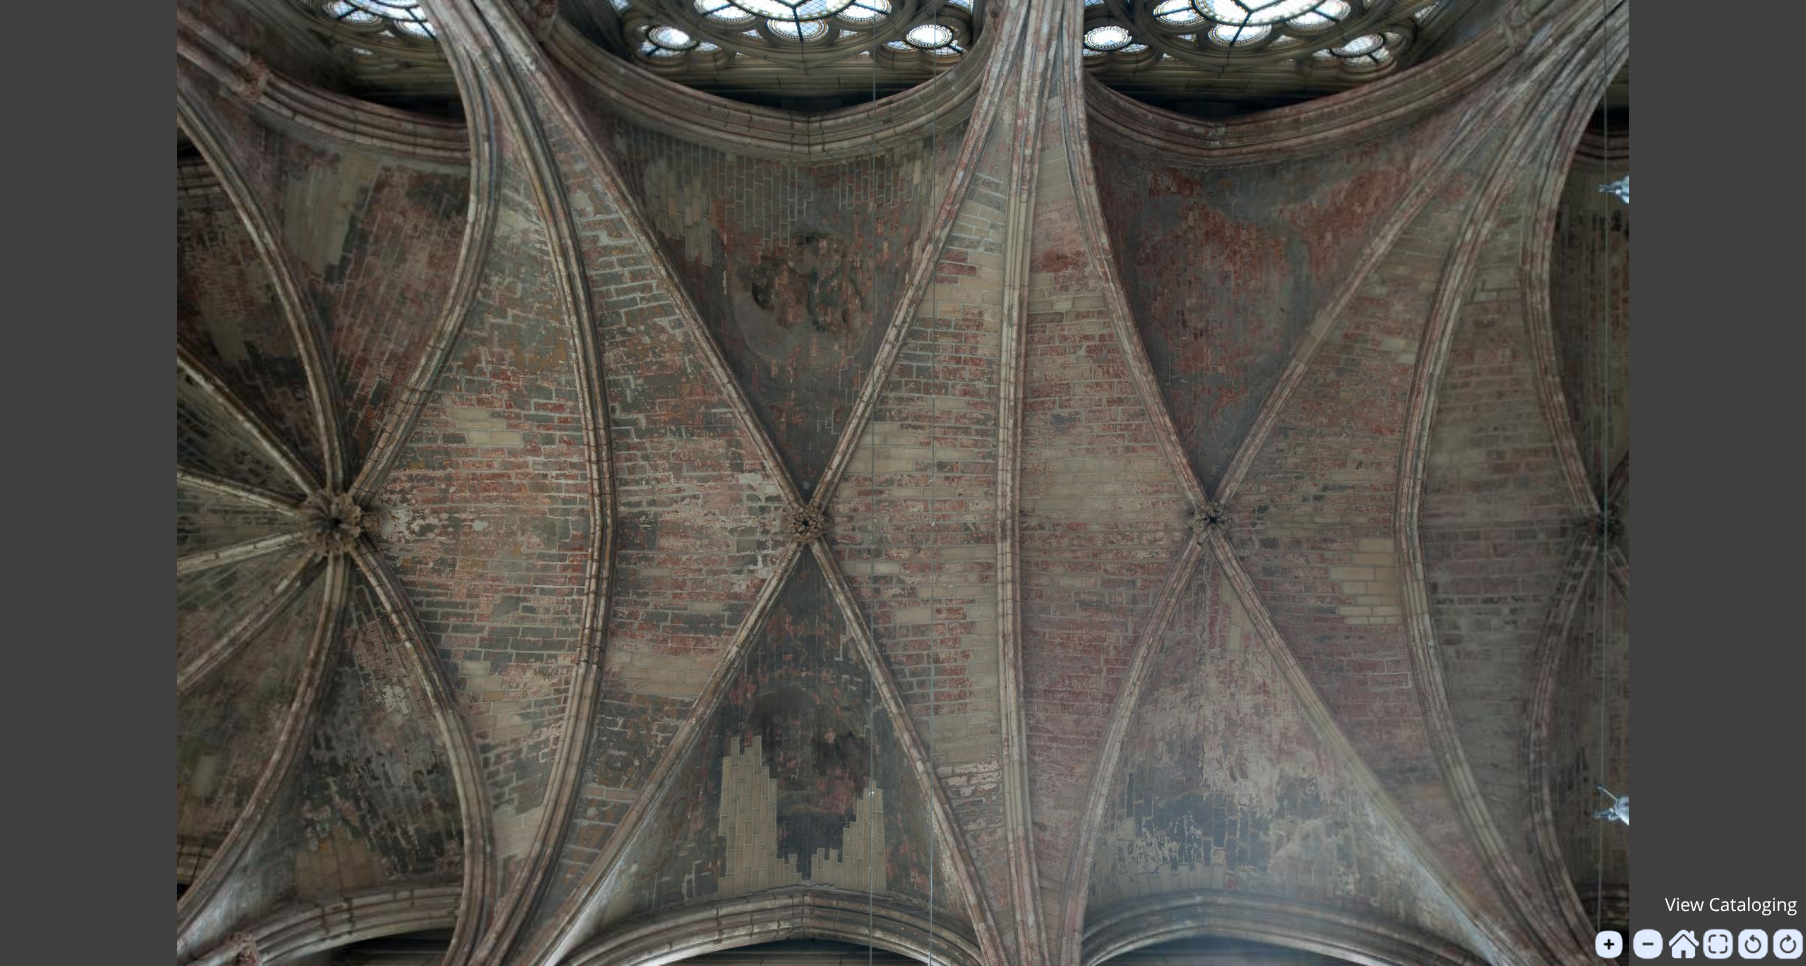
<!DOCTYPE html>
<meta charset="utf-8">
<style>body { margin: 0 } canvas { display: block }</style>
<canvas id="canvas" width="1806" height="966"></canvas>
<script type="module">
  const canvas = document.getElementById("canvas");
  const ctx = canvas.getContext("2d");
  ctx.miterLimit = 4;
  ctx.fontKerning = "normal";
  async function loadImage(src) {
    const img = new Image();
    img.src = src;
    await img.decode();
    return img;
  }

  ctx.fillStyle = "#3f3f3f";
  ctx.fillRect(0, 0, 1806, 966);
  ctx.drawImage(await loadImage("img1.png"), 177, 0, 1452, 966);
  ctx.drawImage(await loadImage("img2.png"), 1595, 930, 28, 29);
  ctx.drawImage(await loadImage("img3.png"), 1595, 930, 28, 29);
  ctx.drawImage(await loadImage("img4.png"), 1632, 928, 32, 32);
  ctx.drawImage(await loadImage("img5.png"), 1633, 929, 30, 30);
  ctx.drawImage(await loadImage("img6.png"), 1669, 929, 30, 30);
  ctx.drawImage(await loadImage("img7.png"), 1669, 930, 30, 29);
  ctx.drawImage(await loadImage("img8.png"), 1702, 928, 32, 32);
  ctx.drawImage(await loadImage("img9.png"), 1703, 929, 30, 30);
  ctx.drawImage(await loadImage("img10.png"), 1737, 928, 32, 32);
  ctx.drawImage(await loadImage("img11.png"), 1738, 929, 30, 30);
  ctx.drawImage(await loadImage("img12.png"), 1772, 928, 32, 32);
  ctx.drawImage(await loadImage("img13.png"), 1773, 929, 30, 30);
  ctx.font = "18px Open Sans";
  ctx.fillStyle = "#ffffff";
  ctx.fillText("View Cataloging", 1665, 911);
</script>
